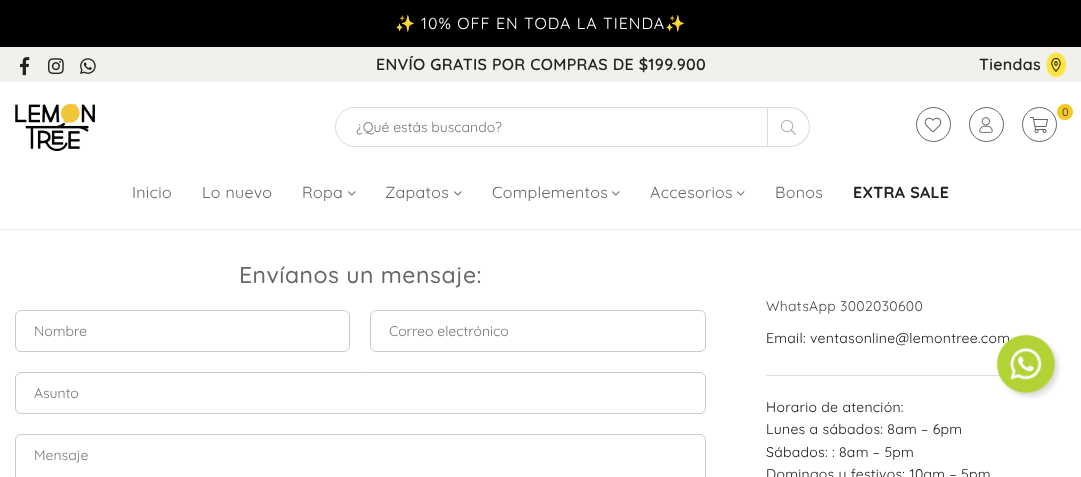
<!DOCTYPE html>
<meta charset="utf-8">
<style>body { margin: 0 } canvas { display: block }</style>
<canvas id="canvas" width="1081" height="477"></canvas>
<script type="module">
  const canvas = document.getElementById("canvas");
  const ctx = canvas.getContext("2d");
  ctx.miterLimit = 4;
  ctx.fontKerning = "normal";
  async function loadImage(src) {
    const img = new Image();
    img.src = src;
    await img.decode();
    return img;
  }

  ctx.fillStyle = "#ffffff";
  ctx.fillRect(0, 0, 1081, 477);
  ctx.fillStyle = "#000000";
  ctx.fillRect(0, 0, 1081, 47);
  ctx.letterSpacing = "1px";
  ctx.font = "16px Noto Color Emoji";
  ctx.fillStyle = "#ffffff";
  ctx.fillText("✨", 395, 29);
  ctx.font = "16px Quicksand";
  ctx.fillText("10% OFF EN TODA LA TIENDA", 421, 29);
  ctx.font = "16px Noto Color Emoji";
  ctx.fillText("✨", 665, 29);
  ctx.fillStyle = "#f1f0ec";
  ctx.fillRect(0, 47, 1081, 35);
  ctx.drawImage(await loadImage("img1.png"), 20, 57, 10, 19);
  ctx.drawImage(await loadImage("img2.png"), 48, 58, 16, 16);
  ctx.drawImage(await loadImage("img3.png"), 80, 58, 16, 16);
  ctx.letterSpacing = "0.3px";
  ctx.font = "600 16px Quicksand";
  ctx.fillStyle = "#222222";
  ctx.fillText("ENVÍO GRATIS POR COMPRAS DE $199.900", 376, 70);
  ctx.fillText("Tiendas", 979, 70);
  ctx.drawImage(await loadImage("img4.png"), 1046, 52, 20, 25);
  ctx.fillStyle = "#eeeeee";
  ctx.fillRect(0, 229, 1081, 1);
  ctx.drawImage(await loadImage("img5.png"), 15, 104, 80, 47);
  ctx.beginPath();
  ctx.arc(933.5, 124.5, 17, 0, Math.PI * 2);
  ctx.strokeStyle = "#666666";
  ctx.stroke();
  ctx.drawImage(await loadImage("img6.png"), 924, 117, 18, 16);
  ctx.beginPath();
  ctx.arc(986.5, 124.5, 17, 0, Math.PI * 2);
  ctx.stroke();
  ctx.drawImage(await loadImage("img7.png"), 979, 117, 14, 16);
  ctx.beginPath();
  ctx.arc(1039.5, 124.5, 17, 0, Math.PI * 2);
  ctx.stroke();
  ctx.drawImage(await loadImage("img8.png"), 1030, 117, 18, 16);
  ctx.fillStyle = "#f4c725";
  ctx.beginPath();
  ctx.arc(1065, 112, 8, 0, Math.PI * 2);
  ctx.fill();
  ctx.font = "11px Quicksand";
  ctx.fillStyle = "#222222";
  ctx.fillText("0", 1062, 116);
  ctx.beginPath();
  ctx.roundRect(335.5, 107.5, 432, 39, [19.5, 0, 0, 19.5]);
  ctx.strokeStyle = "#dcdcdc";
  ctx.stroke();
  ctx.letterSpacing = "0px";
  ctx.font = "14px Quicksand";
  ctx.fillStyle = "#757575";
  ctx.fillText("¿Qué estás buscando?", 356, 132);
  ctx.fillStyle = "#dcdcdc";
  ctx.beginPath();
  ctx.moveTo(768, 107);
  ctx.lineTo(790, 107);
  ctx.bezierCurveTo(801, 107, 810, 116, 810, 127);
  ctx.bezierCurveTo(810, 138, 801, 147, 790, 147);
  ctx.lineTo(768, 147);
  ctx.closePath();
  ctx.moveTo(768, 108);
  ctx.lineTo(790, 108);
  ctx.bezierCurveTo(800, 108, 809, 117, 809, 127);
  ctx.bezierCurveTo(809, 137, 800, 146, 790, 146);
  ctx.lineTo(768, 146);
  ctx.closePath();
  ctx.fill("evenodd");
  ctx.drawImage(await loadImage("img9.png"), 781, 120, 15, 15);
  ctx.letterSpacing = "0.3px";
  ctx.font = "16px Quicksand";
  ctx.fillStyle = "#666666";
  ctx.fillText("Inicio", 132, 198);
  ctx.fillText("Lo nuevo", 202, 198);
  ctx.fillText("Ropa", 302, 198);
  ctx.drawImage(await loadImage("img10.png"), 348, 191, 8, 5);
  ctx.fillText("Zapatos", 385, 198);
  ctx.drawImage(await loadImage("img10.png"), 454, 191, 8, 5);
  ctx.fillText("Complementos", 492, 198);
  ctx.drawImage(await loadImage("img10.png"), 612, 191, 8, 5);
  ctx.fillText("Accesorios", 650, 198);
  ctx.drawImage(await loadImage("img10.png"), 737, 191, 8, 5);
  ctx.fillText("Bonos", 775, 198);
  ctx.font = "bold 16px Quicksand";
  ctx.fillStyle = "#222222";
  ctx.fillText("EXTRA SALE", 853, 198);
  ctx.letterSpacing = "0.5px";
  ctx.font = "500 23px Quicksand";
  ctx.fillStyle = "#666666";
  ctx.fillText("Envíanos un mensaje:", 239, 283);
  ctx.beginPath();
  ctx.roundRect(15.5, 310.5, 334, 41, 5.5);
  ctx.strokeStyle = "#cbcbcb";
  ctx.stroke();
  ctx.letterSpacing = "0px";
  ctx.font = "14px Quicksand";
  ctx.fillStyle = "#757575";
  ctx.fillText("Nombre", 34, 336);
  ctx.beginPath();
  ctx.roundRect(370.5, 310.5, 335, 41, 5.5);
  ctx.stroke();
  ctx.fillText("Correo electrónico", 389, 336);
  ctx.beginPath();
  ctx.roundRect(15.5, 372.5, 690, 41, 5.5);
  ctx.stroke();
  ctx.fillText("Asunto", 34, 398);
  ctx.beginPath();
  ctx.roundRect(15.5, 434.5, 690, 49, 5.5);
  ctx.stroke();
  ctx.fillText("Mensaje", 34, 460);
  ctx.letterSpacing = "0.3px";
  ctx.fillStyle = "#464646";
  ctx.fillText("WhatsApp 3002030600", 766, 311);
  ctx.fillStyle = "#111111";
  ctx.fillText("Email: ventasonline@lemontree.com", 766, 343);
  ctx.fillStyle = "#dddddd";
  ctx.fillRect(766, 375, 235, 1);
  ctx.fillStyle = "#111111";
  ctx.fillText("Horario de atención:", 766, 412);
  ctx.fillText("Lunes a sábados: 8am – 6pm", 766, 434);
  ctx.fillText("Sábados: : 8am – 5pm", 766, 457);
  ctx.fillText("Domingos y festivos: 10am – 5pm", 766, 479);
  ctx.drawImage(await loadImage("img11.png"), 996, 334, 65, 65);
</script>
